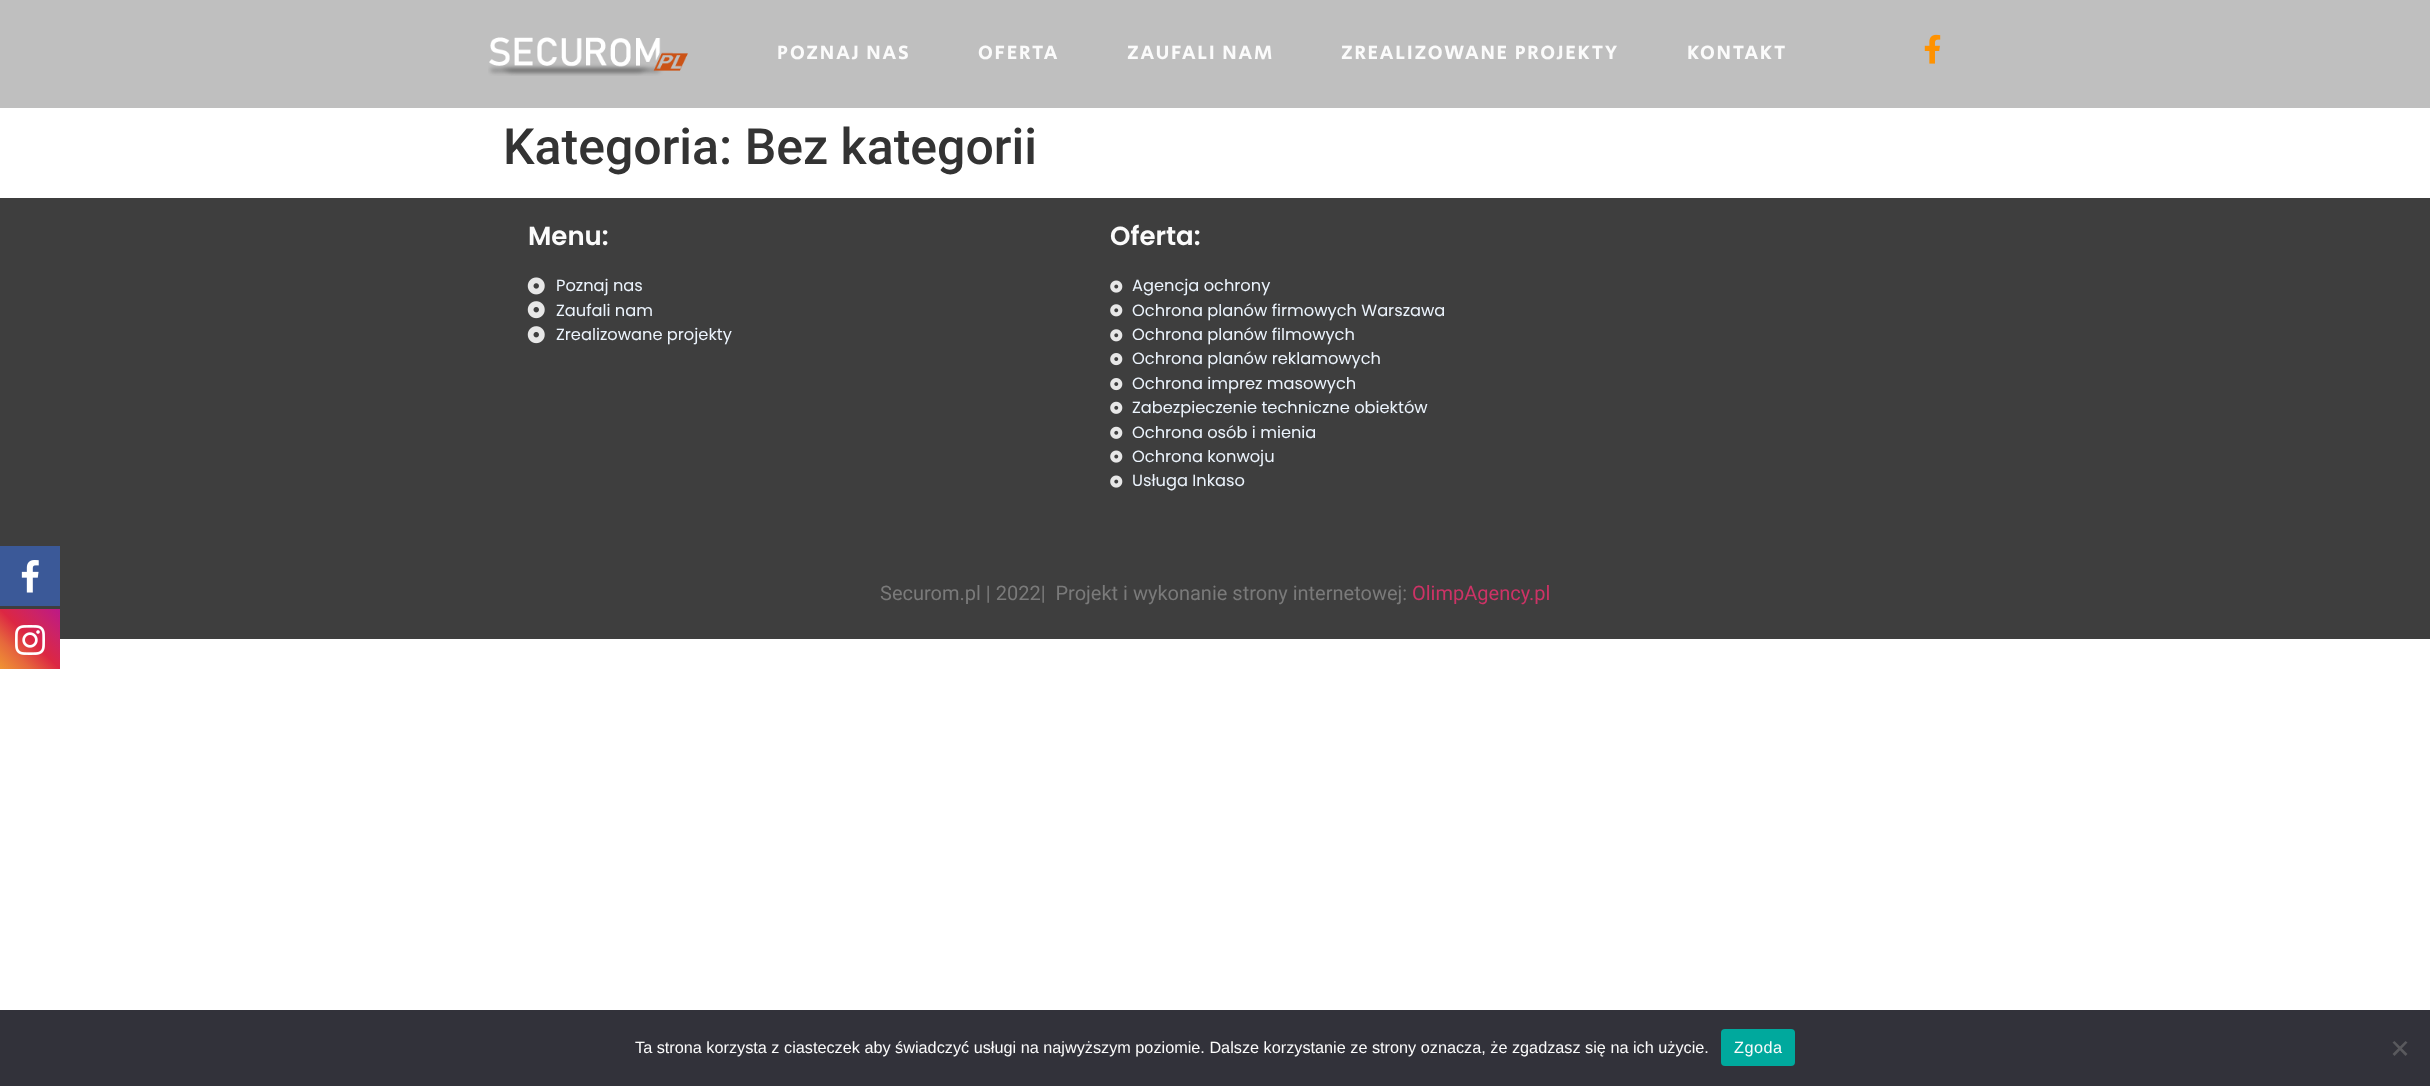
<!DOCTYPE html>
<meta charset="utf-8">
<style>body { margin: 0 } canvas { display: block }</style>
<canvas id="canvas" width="2430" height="1086"></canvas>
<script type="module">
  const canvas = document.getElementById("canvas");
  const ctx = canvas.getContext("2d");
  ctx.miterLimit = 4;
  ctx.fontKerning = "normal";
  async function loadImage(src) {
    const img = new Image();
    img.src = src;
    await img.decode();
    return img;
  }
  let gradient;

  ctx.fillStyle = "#ffffff";
  ctx.fillRect(0, 0, 2430, 1086);
  ctx.fillStyle = "#bfbfbf";
  ctx.fillRect(0, 0, 2430, 108);
  ctx.drawImage(await loadImage("img1.png"), 488, 37, 200, 39);
  ctx.letterSpacing = "1.75px";
  ctx.font = "20px Secular One";
  ctx.fillStyle = "#fbfbfb";
  ctx.fillText("POZNAJ NAS", 777, 59);
  ctx.fillText("OFERTA", 978, 59);
  ctx.fillText("ZAUFALI NAM", 1127, 59);
  ctx.fillText("ZREALIZOWANE PROJEKTY", 1341, 59);
  ctx.fillText("KONTAKT", 1687, 59);
  ctx.drawImage(await loadImage("img2.png"), 1924, 34, 17, 30);
  ctx.letterSpacing = "0px";
  ctx.font = "500 50px Roboto";
  ctx.fillStyle = "#333333";
  ctx.fillText("Kategoria: Bez kategorii", 503, 164);
  ctx.fillStyle = "#3e3e3e";
  ctx.fillRect(0, 198, 2430, 441);
  ctx.fillStyle = "#3b5998";
  ctx.fillRect(0, 546, 60, 60);
  ctx.drawImage(await loadImage("img3.png"), 21, 560, 18, 33);
  gradient = ctx.createLinearGradient(0, 669, 60, 609);
  gradient.addColorStop(0, "#f09433");
  gradient.addColorStop(0.25, "#e6683c");
  gradient.addColorStop(0.5, "#dc2743");
  gradient.addColorStop(0.75, "#cc2366");
  gradient.addColorStop(1, "#bc1888");
  ctx.fillStyle = gradient;
  ctx.fillRect(0, 609, 60, 60);
  ctx.drawImage(await loadImage("img4.png"), 15, 625, 30, 30);
  ctx.font = "600 26px Poppins";
  ctx.fillStyle = "#fbfbfb";
  ctx.fillText("Menu:", 528, 245);
  ctx.drawImage(await loadImage("img5.png"), 527, 277, 18, 18);
  ctx.font = "16.25px Poppins";
  ctx.fillStyle = "#ecf4fd";
  ctx.fillText("Poznaj nas", 556, 291);
  ctx.drawImage(await loadImage("img6.png"), 527, 301, 18, 18);
  ctx.fillText("Zaufali nam", 556, 316);
  ctx.drawImage(await loadImage("img6.png"), 527, 326, 18, 18);
  ctx.fillText("Zrealizowane projekty", 556, 340);
  ctx.font = "600 26px Poppins";
  ctx.fillStyle = "#fbfbfb";
  ctx.fillText("Oferta:", 1110, 245);
  ctx.drawImage(await loadImage("img7.png"), 1110, 280, 13, 13);
  ctx.font = "16.25px Poppins";
  ctx.fillStyle = "#ecf4fd";
  ctx.fillText("Agencja ochrony", 1132, 291);
  ctx.drawImage(await loadImage("img8.png"), 1110, 304, 13, 13);
  ctx.fillText("Ochrona planów firmowych Warszawa", 1132, 316);
  ctx.drawImage(await loadImage("img8.png"), 1110, 329, 13, 13);
  ctx.fillText("Ochrona planów filmowych", 1132, 340);
  ctx.drawImage(await loadImage("img9.png"), 1110, 353, 13, 13);
  ctx.fillText("Ochrona planów reklamowych", 1132, 364);
  ctx.drawImage(await loadImage("img9.png"), 1110, 378, 13, 13);
  ctx.fillText("Ochrona imprez masowych", 1132, 389);
  ctx.drawImage(await loadImage("img10.png"), 1110, 401, 13, 13);
  ctx.fillText("Zabezpieczenie techniczne obiektów", 1132, 413);
  ctx.drawImage(await loadImage("img10.png"), 1110, 426, 13, 13);
  ctx.fillText("Ochrona osób i mienia", 1132, 438);
  ctx.drawImage(await loadImage("img7.png"), 1110, 450, 13, 13);
  ctx.fillText("Ochrona konwoju", 1132, 462);
  ctx.drawImage(await loadImage("img7.png"), 1110, 475, 13, 13);
  ctx.fillText("Usługa Inkaso", 1132, 486);
  ctx.font = "20px Roboto";
  ctx.fillStyle = "#7a7a7a";
  ctx.fillText("Securom.pl | 2022|  Projekt i wykonanie strony internetowej:", 880, 600);
  ctx.fillStyle = "#cc3366";
  ctx.fillText("OlimpAgency.pl", 1412, 600);
  ctx.fillStyle = "#32323a";
  ctx.fillRect(0, 1010, 2430, 76);
  ctx.font = "16.25px Liberation Sans";
  ctx.fillStyle = "#fbfbfb";
  ctx.fillText("Ta strona korzysta z ciasteczek aby świadczyć usługi na najwyższym poziomie. Dalsze korzystanie ze strony oznacza, że zgadzasz się na ich użycie.", 635, 1053);
  ctx.fillStyle = "#00a99d";
  ctx.beginPath();
  ctx.roundRect(1721, 1029, 74, 37, 4);
  ctx.fill();
  ctx.letterSpacing = "0.5px";
  ctx.fillStyle = "#fbfbfb";
  ctx.fillText("Zgoda", 1734, 1053);
  ctx.fillStyle = "#59595d";
  ctx.beginPath();
  ctx.moveTo(2405.5, 1041);
  ctx.lineTo(2407.5, 1042.5);
  ctx.lineTo(2394.5, 1056);
  ctx.lineTo(2392.5, 1054);
  ctx.closePath();
  ctx.fill();
  ctx.beginPath();
  ctx.moveTo(2392.5, 1042.5);
  ctx.lineTo(2394.5, 1041);
  ctx.lineTo(2407.5, 1054);
  ctx.lineTo(2405.5, 1056);
  ctx.closePath();
  ctx.fill();
</script>
